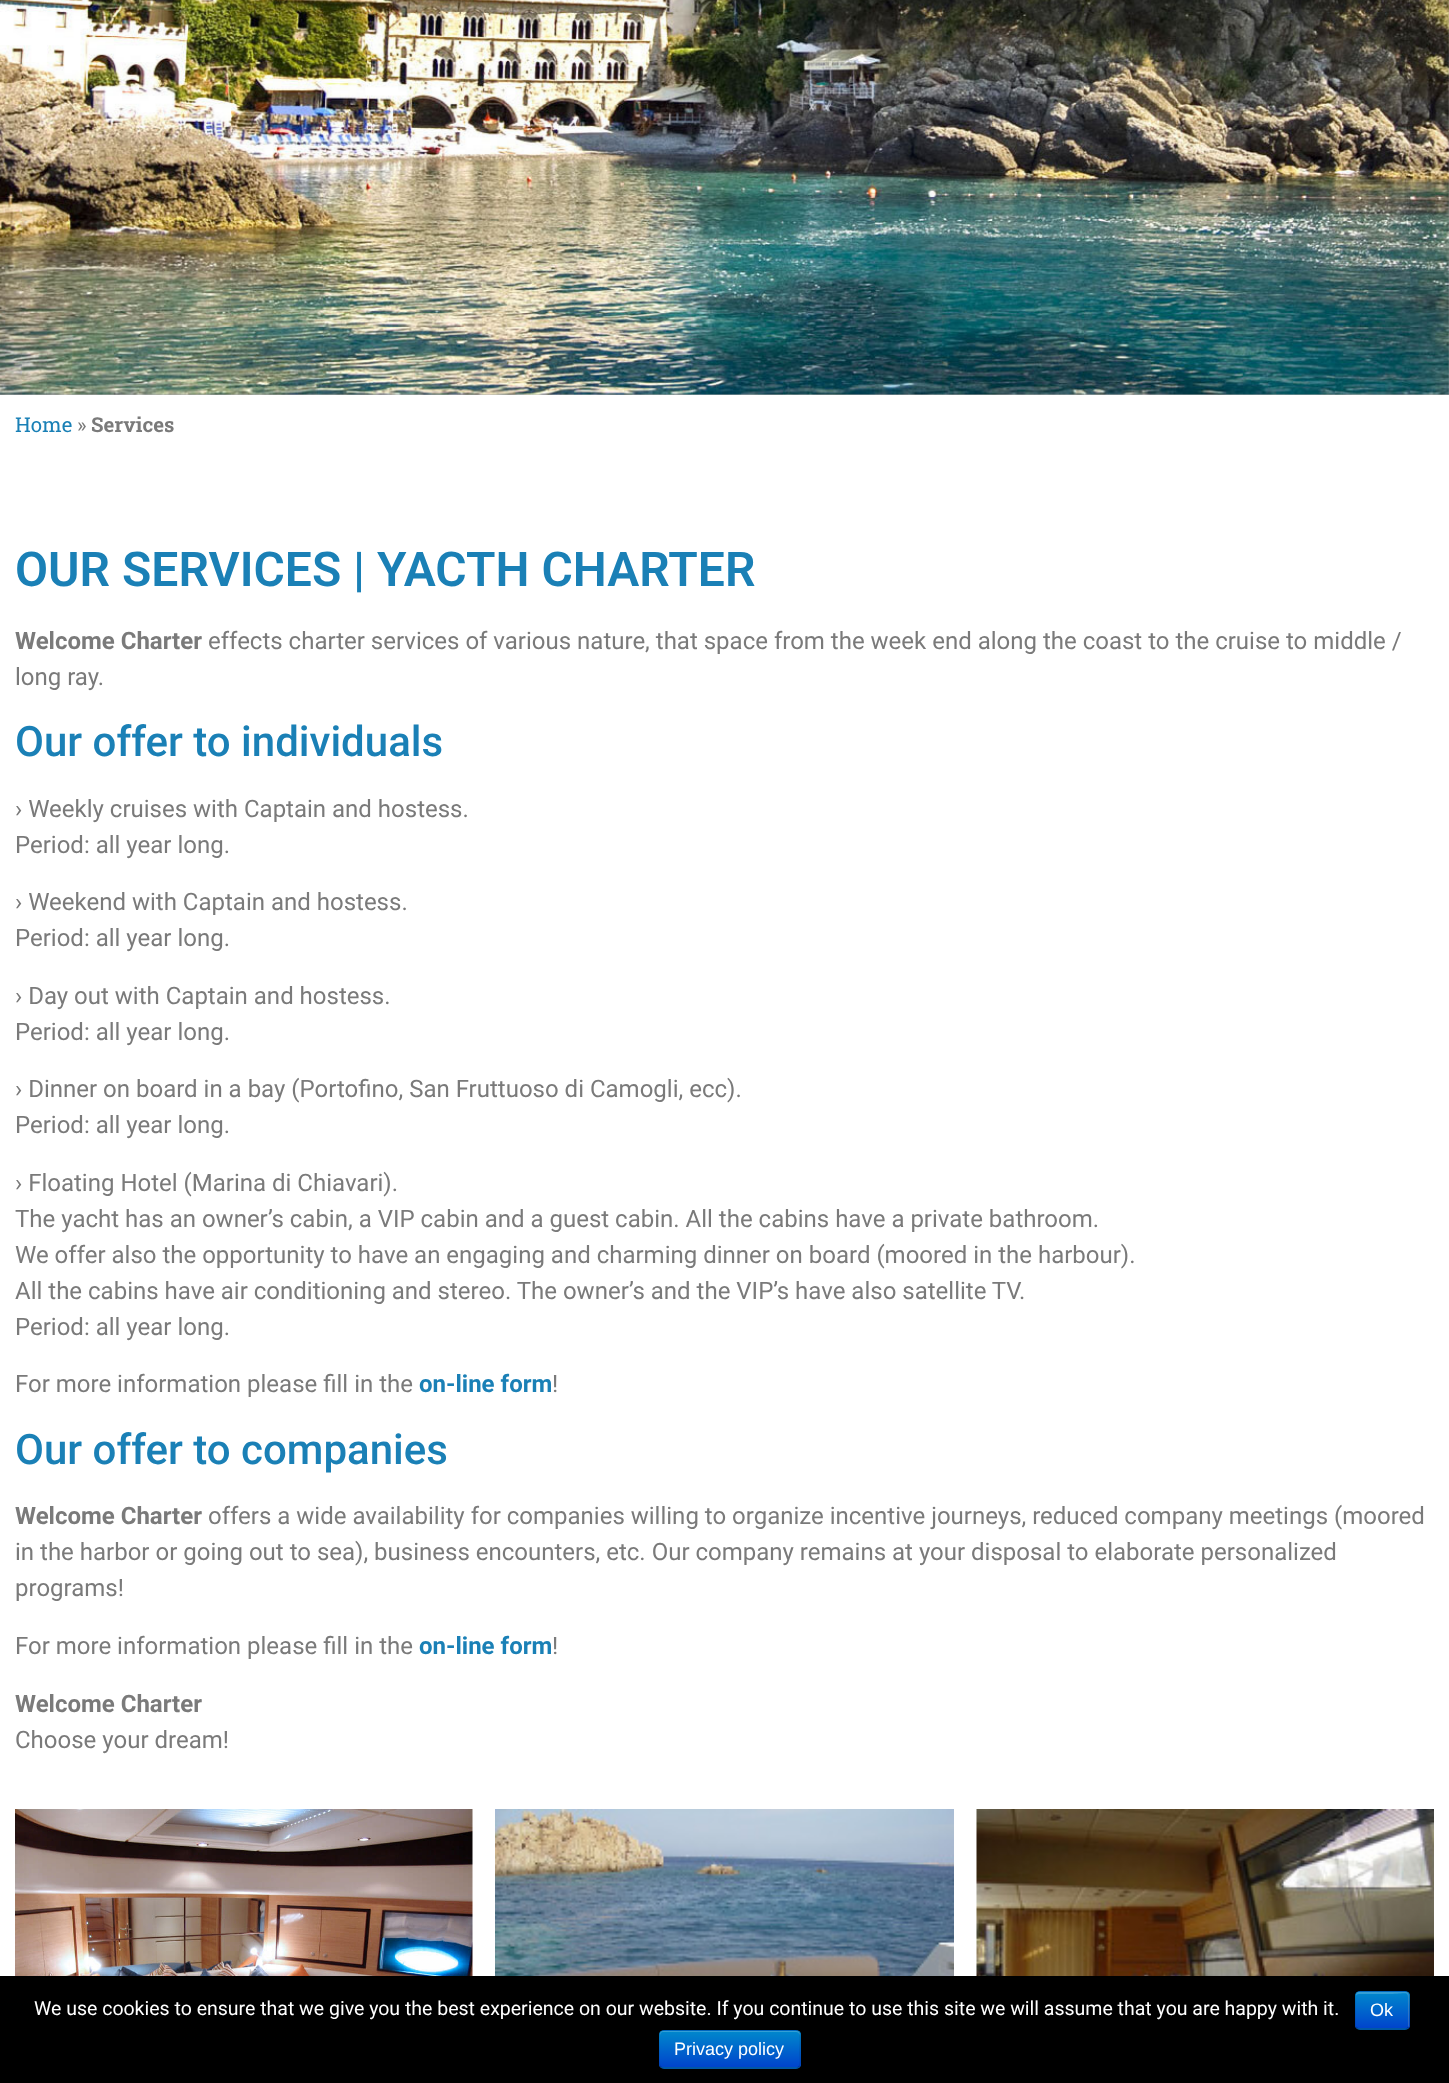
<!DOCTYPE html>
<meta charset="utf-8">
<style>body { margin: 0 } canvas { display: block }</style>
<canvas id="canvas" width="1449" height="2083"></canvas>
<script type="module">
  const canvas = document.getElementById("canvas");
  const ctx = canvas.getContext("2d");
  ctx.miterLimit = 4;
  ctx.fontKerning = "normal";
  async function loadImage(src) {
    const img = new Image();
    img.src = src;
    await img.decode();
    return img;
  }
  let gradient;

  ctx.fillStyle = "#ffffff";
  ctx.fillRect(0, 0, 1449, 2083);
  ctx.fillStyle = "#aaaaaa";
  ctx.fillRect(0, 0, 1449, 395);
  ctx.drawImage(await loadImage("img1.png"), 0, 0, 1449, 395);
  ctx.font = "20.5px Roboto Slab";
  ctx.fillStyle = "#1a80b6";
  ctx.fillText("Home", 15, 432);
  ctx.fillStyle = "#7a7a7a";
  ctx.fillText("»", 77, 432);
  ctx.font = "bold 20.5px Roboto Slab";
  ctx.fillText("Services", 91, 432);
  ctx.font = "600 48px Roboto";
  ctx.fillStyle = "#1a80b6";
  ctx.fillText("OUR SERVICES | YACTH CHARTER", 15, 586);
  ctx.font = "bold 24px Roboto";
  ctx.fillStyle = "#7a7a7a";
  ctx.fillText("Welcome Charter", 15, 649);
  ctx.font = "24px Roboto";
  ctx.fillText("effects charter services of various nature, that space from the week end along the coast to the cruise to middle /", 208, 649);
  ctx.fillText("long ray.", 15, 685);
  ctx.font = "500 42px Roboto";
  ctx.fillStyle = "#1a80b6";
  ctx.fillText("Our offer to individuals", 15, 756);
  ctx.font = "24px Roboto";
  ctx.fillStyle = "#7a7a7a";
  ctx.fillText("› Weekly cruises with Captain and hostess.", 15, 817);
  ctx.fillText("Period: all year long.", 15, 853);
  ctx.fillText("› Weekend with Captain and hostess.", 15, 910);
  ctx.fillText("Period: all year long.", 15, 946);
  ctx.fillText("› Day out with Captain and hostess.", 15, 1004);
  ctx.fillText("Period: all year long.", 15, 1040);
  ctx.fillText("› Dinner on board in a bay (Portofino, San Fruttuoso di Camogli, ecc).", 15, 1097);
  ctx.fillText("Period: all year long.", 15, 1133);
  ctx.fillText("› Floating Hotel (Marina di Chiavari).", 15, 1191);
  ctx.fillText("The yacht has an owner’s cabin, a VIP cabin and a guest cabin. All the cabins have a private bathroom.", 15, 1227);
  ctx.fillText("We offer also the opportunity to have an engaging and charming dinner on board (moored in the harbour).", 15, 1263);
  ctx.fillText("All the cabins have air conditioning and stereo. The owner’s and the VIP’s have also satellite TV.", 15, 1299);
  ctx.fillText("Period: all year long.", 15, 1335);
  ctx.fillText("For more information please fill in the", 15, 1392);
  ctx.font = "bold 24px Roboto";
  ctx.fillStyle = "#1a80b6";
  ctx.fillText("on-line form", 419, 1392);
  ctx.font = "24px Roboto";
  ctx.fillStyle = "#7a7a7a";
  ctx.fillText("!", 552, 1392);
  ctx.font = "500 42px Roboto";
  ctx.fillStyle = "#1a80b6";
  ctx.fillText("Our offer to companies", 15, 1464);
  ctx.font = "bold 24px Roboto";
  ctx.fillStyle = "#7a7a7a";
  ctx.fillText("Welcome Charter", 15, 1524);
  ctx.font = "24px Roboto";
  ctx.fillText("offers a wide availability for companies willing to organize incentive journeys, reduced company meetings (moored", 208, 1524);
  ctx.fillText("in the harbor or going out to sea), business encounters, etc. Our company remains at your disposal to elaborate personalized", 15, 1560);
  ctx.fillText("programs!", 15, 1596);
  ctx.fillText("For more information please fill in the", 15, 1654);
  ctx.font = "bold 24px Roboto";
  ctx.fillStyle = "#1a80b6";
  ctx.fillText("on-line form", 419, 1654);
  ctx.font = "24px Roboto";
  ctx.fillStyle = "#7a7a7a";
  ctx.fillText("!", 552, 1654);
  ctx.font = "bold 24px Roboto";
  ctx.fillText("Welcome Charter", 15, 1712);
  ctx.font = "24px Roboto";
  ctx.fillText("Choose your dream!", 15, 1748);
  ctx.drawImage(await loadImage("img2.png"), 15, 1809, 458, 167);
  ctx.drawImage(await loadImage("img3.png"), 495, 1809, 459, 167);
  ctx.drawImage(await loadImage("img4.png"), 976, 1809, 458, 167);
  ctx.fillStyle = "#000000";
  ctx.fillRect(0, 1976, 1449, 107);
  ctx.font = "19.5px Roboto";
  ctx.fillStyle = "#ffffff";
  ctx.fillText("We use cookies to ensure that we give you the best experience on our website. If you continue to use this site we will assume that you are happy with it.", 34, 2015);
  ctx.fillStyle = "#006dcc";
  ctx.beginPath();
  ctx.roundRect(1355, 1991, 55, 39, 5);
  ctx.fill();
  ctx.save();
  ctx.beginPath();
  ctx.roundRect(1355, 1991, 55, 39, 5);
  ctx.clip();
  gradient = ctx.createLinearGradient(1382, 1992, 1382, 2028);
  gradient.addColorStop(0, "#0088cc");
  gradient.addColorStop(1, "#0044cc");
  ctx.fillStyle = gradient;
  ctx.fillRect(1355, 1992, 55, 36);
  ctx.restore();
  ctx.fillStyle = "rgba(255, 255, 255, 0.2)";
  ctx.beginPath();
  ctx.moveTo(1359, 1994);
  ctx.lineTo(1390, 1994);
  ctx.bezierCurveTo(1410, 1994, 1408, 1989, 1408, 2006);
  ctx.lineTo(1408, 2027);
  ctx.bezierCurveTo(1409, 2027, 1409, 2026, 1409, 2025);
  ctx.lineTo(1409, 1995);
  ctx.bezierCurveTo(1409, 1993, 1408, 1992, 1406, 1992);
  ctx.lineTo(1359, 1992);
  ctx.bezierCurveTo(1357, 1992, 1356, 1993, 1356, 1995);
  ctx.lineTo(1356, 1996);
  ctx.bezierCurveTo(1356, 1995, 1357, 1994, 1359, 1994);
  ctx.closePath();
  ctx.fill();
  ctx.beginPath();
  ctx.moveTo(1408, 2027.5);
  ctx.bezierCurveTo(1407.5, 2028.5, 1406.5, 2029, 1405.5, 2029);
  ctx.lineTo(1359, 2029);
  ctx.bezierCurveTo(1358, 2029, 1357, 2028.5, 1356.5, 2027.5);
  ctx.strokeStyle = "rgba(0, 0, 0, 0.25)";
  ctx.lineWidth = 1.5;
  ctx.stroke();
  ctx.beginPath();
  ctx.moveTo(1356.5, 2027.5);
  ctx.bezierCurveTo(1355.5, 2027, 1355, 2026, 1355, 2025);
  ctx.lineTo(1355, 1995);
  ctx.bezierCurveTo(1355, 1994, 1355.5, 1993, 1356.5, 1992.5);
  ctx.bezierCurveTo(1357, 1991.5, 1358, 1991, 1359, 1991);
  ctx.lineTo(1405.5, 1991);
  ctx.bezierCurveTo(1406.5, 1991, 1407.5, 1991.5, 1408, 1992.5);
  ctx.bezierCurveTo(1409, 1993, 1409, 1994, 1409, 1995);
  ctx.lineTo(1409, 2025);
  ctx.bezierCurveTo(1409, 2026, 1409, 2027, 1408, 2027.5);
  ctx.strokeStyle = "rgba(0, 0, 0, 0.1)";
  ctx.stroke();
  ctx.font = "18px Liberation Sans";
  ctx.fillStyle = "#ffffff";
  ctx.fillText("Ok", 1370, 2016);
  ctx.fillStyle = "#006dcc";
  ctx.beginPath();
  ctx.roundRect(659, 2030, 142, 39, 5);
  ctx.fill();
  ctx.save();
  ctx.beginPath();
  ctx.roundRect(659, 2030, 142, 39, 5);
  ctx.clip();
  gradient = ctx.createLinearGradient(730, 2031, 730, 2067);
  gradient.addColorStop(0, "#0088cc");
  gradient.addColorStop(1, "#0044cc");
  ctx.fillStyle = gradient;
  ctx.fillRect(659, 2031, 142, 36);
  ctx.restore();
  ctx.fillStyle = "rgba(255, 255, 255, 0.2)";
  ctx.beginPath();
  ctx.moveTo(663, 2032);
  ctx.lineTo(796, 2032);
  ctx.bezierCurveTo(798, 2032, 800, 2034, 800, 2036);
  ctx.lineTo(800, 2034);
  ctx.bezierCurveTo(800, 2032, 799, 2031, 797, 2031);
  ctx.lineTo(663, 2031);
  ctx.bezierCurveTo(661, 2031, 660, 2032, 660, 2034);
  ctx.lineTo(660, 2036);
  ctx.bezierCurveTo(660, 2034, 661, 2032, 663, 2032);
  ctx.closePath();
  ctx.fill();
  ctx.beginPath();
  ctx.moveTo(799, 2066.5);
  ctx.bezierCurveTo(798.5, 2067.5, 797.5, 2068, 796.5, 2068);
  ctx.lineTo(663, 2068);
  ctx.bezierCurveTo(662, 2068, 661, 2067.5, 660.5, 2066.5);
  ctx.strokeStyle = "rgba(0, 0, 0, 0.25)";
  ctx.stroke();
  ctx.beginPath();
  ctx.moveTo(660.5, 2066.5);
  ctx.bezierCurveTo(658, 2064, 659, 2056.5, 659, 2054);
  ctx.bezierCurveTo(659, 2025, 654, 2030, 685, 2030);
  ctx.lineTo(774, 2030);
  ctx.bezierCurveTo(805.5, 2030, 800, 2025, 800, 2054);
  ctx.bezierCurveTo(800, 2056.5, 801.5, 2064, 799, 2066.5);
  ctx.strokeStyle = "rgba(0, 0, 0, 0.1)";
  ctx.stroke();
  ctx.fillStyle = "#ffffff";
  ctx.fillText("Privacy policy", 674, 2055);
</script>
